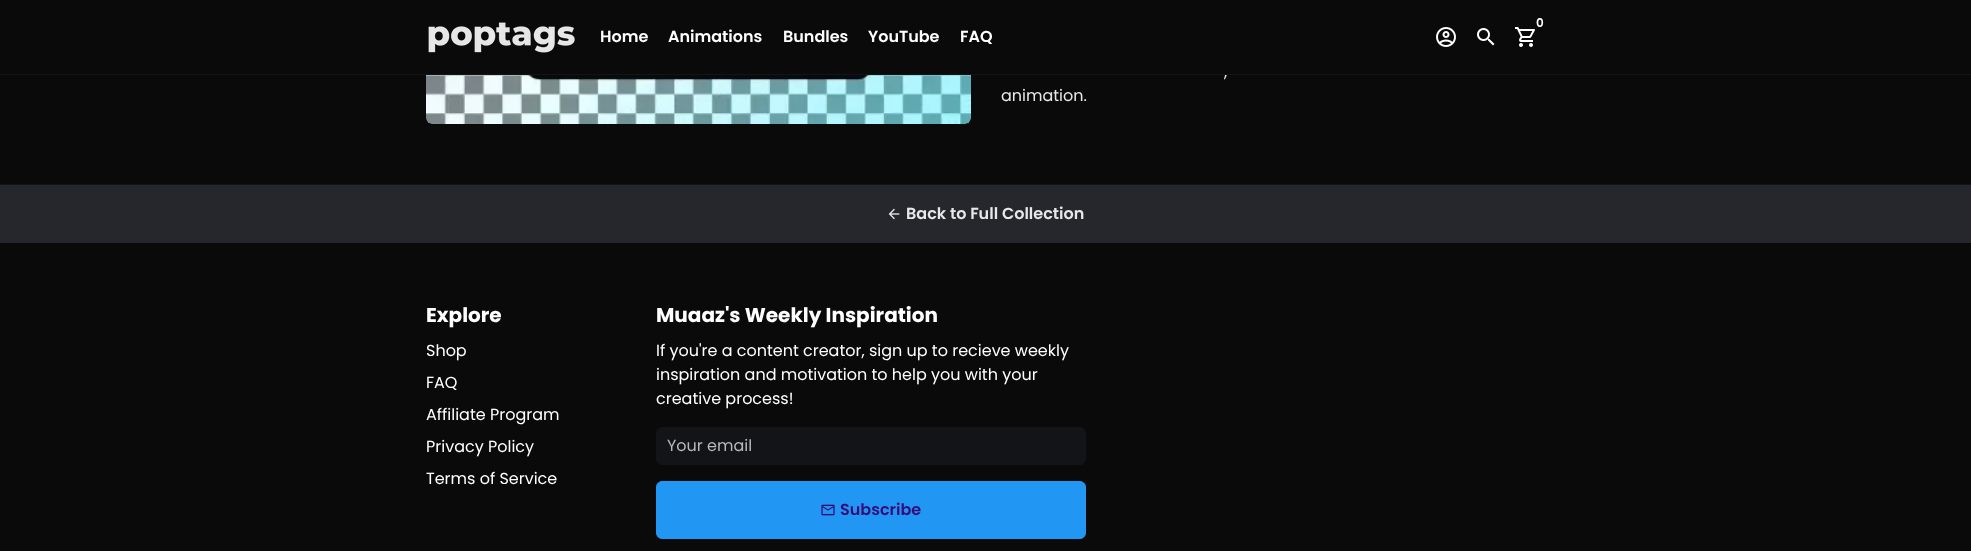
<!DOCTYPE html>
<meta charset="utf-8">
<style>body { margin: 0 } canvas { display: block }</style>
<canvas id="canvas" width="1971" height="551"></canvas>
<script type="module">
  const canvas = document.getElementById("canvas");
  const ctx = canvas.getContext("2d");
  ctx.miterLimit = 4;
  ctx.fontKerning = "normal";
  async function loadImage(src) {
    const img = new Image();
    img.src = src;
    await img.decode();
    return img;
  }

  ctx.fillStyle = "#0a0a0a";
  ctx.fillRect(0, 0, 1971, 551);
  ctx.fillStyle = "#121418";
  ctx.beginPath();
  ctx.roundRect(426, -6, 545, 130, 6);
  ctx.fill();
  ctx.fillStyle = "#0a0a0a";
  ctx.fillRect(426, 0, 545, 74);
  ctx.fillStyle = "#121418";
  ctx.fillRect(0, 74, 1971, 1);
  ctx.drawImage(await loadImage("img1.png"), 428, 22, 147, 31);
  ctx.font = "600 16px Poppins";
  ctx.fillStyle = "#ffffff";
  ctx.fillText("Home", 600, 42);
  ctx.fillText("Animations", 668, 42);
  ctx.fillText("Bundles", 783, 42);
  ctx.fillText("YouTube", 868, 42);
  ctx.fillText("FAQ", 960, 42);
  ctx.font = "600 12px Poppins";
  ctx.fillText("0", 1536, 27);
  ctx.drawImage(await loadImage("img2.png"), 1515, 27, 20, 20);
  ctx.drawImage(await loadImage("img3.png"), 1436, 27, 20, 20);
  ctx.drawImage(await loadImage("img4.png"), 1477, 28, 18, 18);
  ctx.drawImage(await loadImage("img5.png"), 426, 75, 545, 49);
  ctx.font = "16px Poppins";
  ctx.fillStyle = "#e8e8e8";
  ctx.fillText(",", 1224, 77);
  ctx.fillText("animation.", 1001, 101);
  ctx.fillStyle = "#121418";
  ctx.fillRect(0, 184, 1971, 1);
  ctx.fillStyle = "#25272c";
  ctx.fillRect(0, 185, 1971, 58);
  ctx.drawImage(await loadImage("img6.png"), 888, 208, 12, 12);
  ctx.font = "600 16px Poppins";
  ctx.fillStyle = "#e8e8e8";
  ctx.fillText("Back to Full Collection", 906, 219);
  ctx.font = "bold 20px Poppins";
  ctx.fillStyle = "#ffffff";
  ctx.fillText("Explore", 426, 322);
  ctx.font = "16px Poppins";
  ctx.fillText("Shop", 426, 356);
  ctx.fillText("FAQ", 426, 388);
  ctx.fillText("Affiliate Program", 426, 420);
  ctx.fillText("Privacy Policy", 426, 452);
  ctx.fillText("Terms of Service", 426, 484);
  ctx.font = "bold 20px Poppins";
  ctx.fillText("Muaaz's Weekly Inspiration", 656, 322);
  ctx.font = "16px Poppins";
  ctx.fillText("If you're a content creator, sign up to recieve weekly", 656, 356);
  ctx.fillText("inspiration and motivation to help you with your", 656, 380);
  ctx.fillText("creative process!", 656, 404);
  ctx.fillStyle = "#121418";
  ctx.beginPath();
  ctx.roundRect(656.5, 427.5, 429, 37, 5.5);
  ctx.fill();
  ctx.strokeStyle = "#121418";
  ctx.stroke();
  ctx.fillStyle = "#b8b9ba";
  ctx.fillText("Your email", 667, 451);
  ctx.fillStyle = "#2196f3";
  ctx.beginPath();
  ctx.roundRect(656.5, 481.5, 429, 57, 5.5);
  ctx.fill();
  ctx.strokeStyle = "#2196f3";
  ctx.stroke();
  ctx.drawImage(await loadImage("img7.png"), 821, 504, 14, 12);
  ctx.font = "600 16px Poppins";
  ctx.fillStyle = "#360c7b";
  ctx.fillText("Subscribe", 840, 515);
</script>
